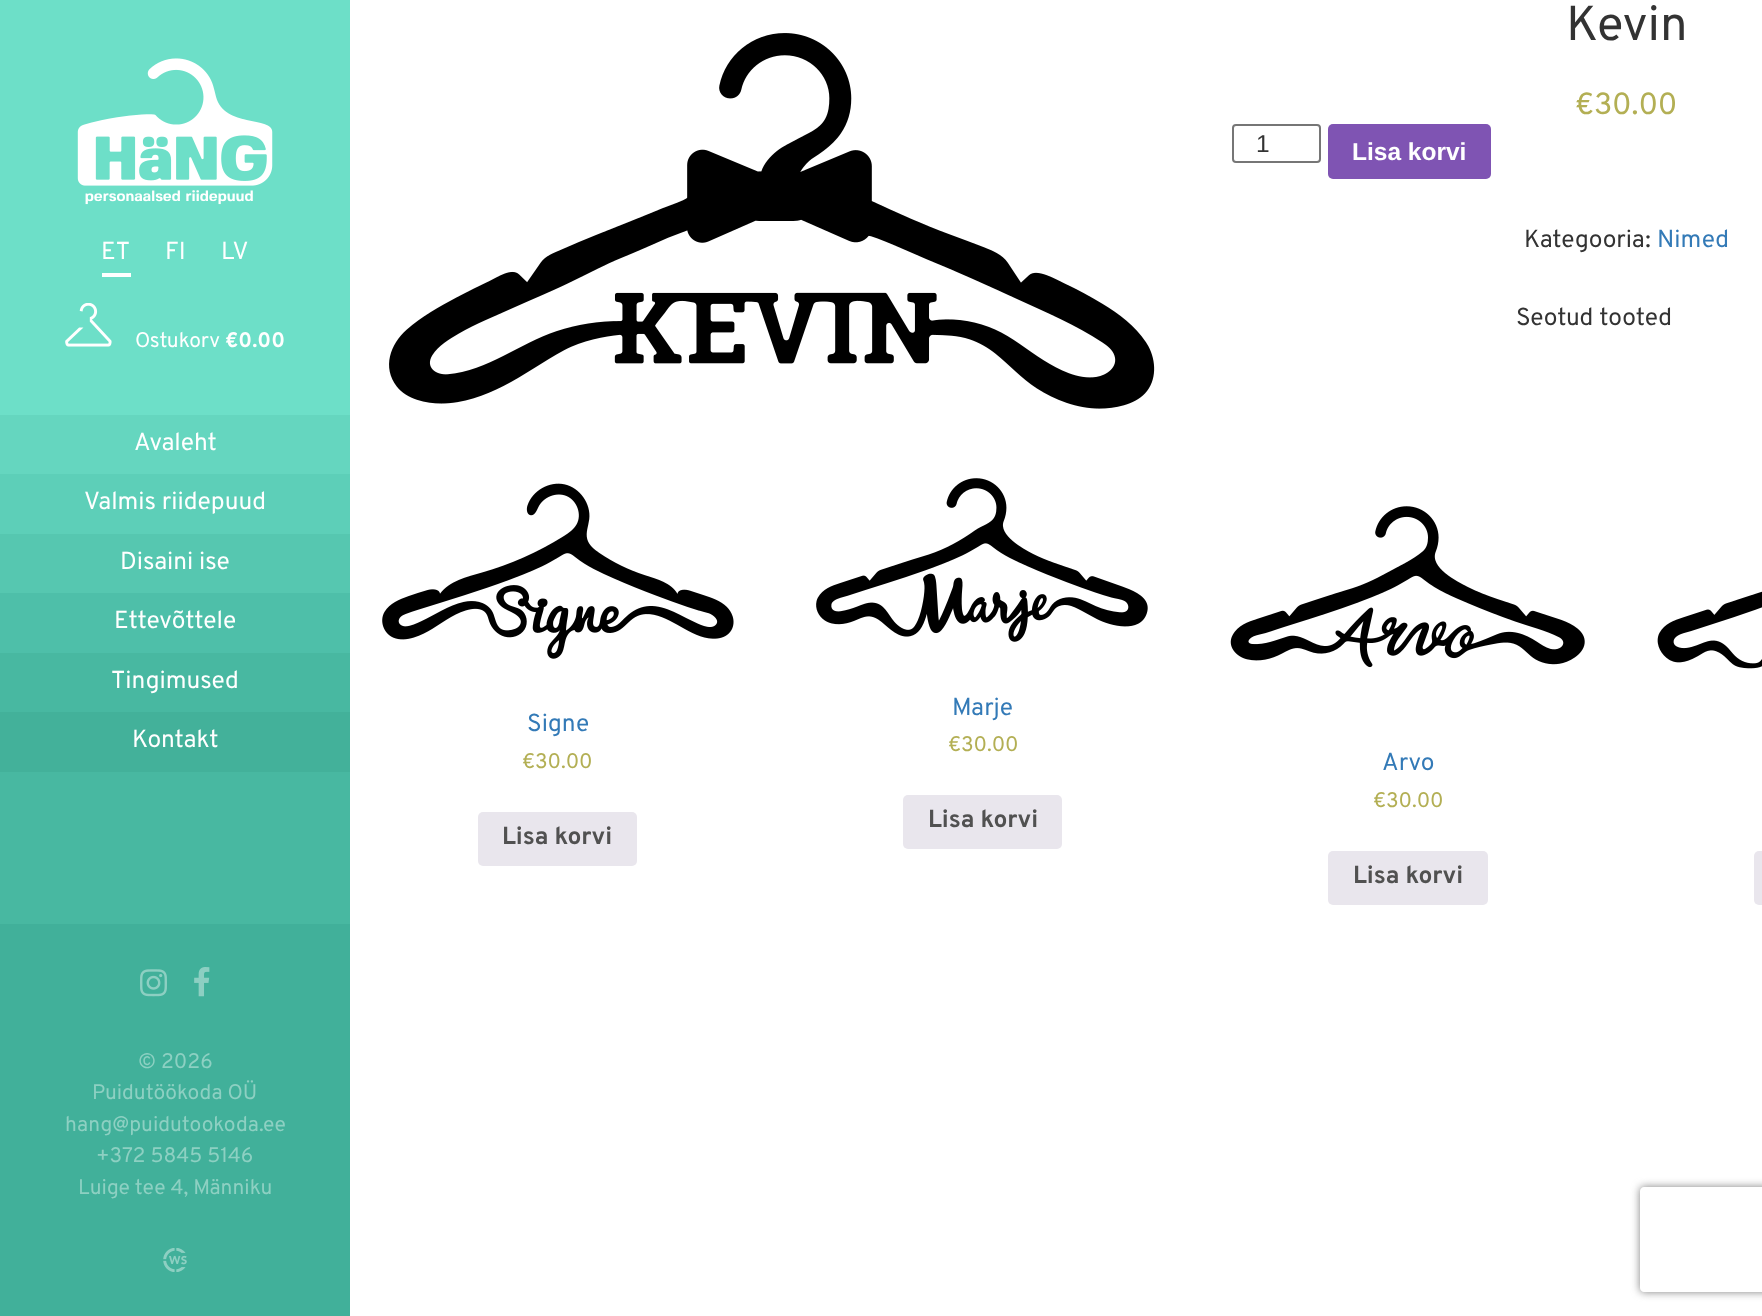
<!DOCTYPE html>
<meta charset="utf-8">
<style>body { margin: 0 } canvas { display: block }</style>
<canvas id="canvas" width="1762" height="1316"></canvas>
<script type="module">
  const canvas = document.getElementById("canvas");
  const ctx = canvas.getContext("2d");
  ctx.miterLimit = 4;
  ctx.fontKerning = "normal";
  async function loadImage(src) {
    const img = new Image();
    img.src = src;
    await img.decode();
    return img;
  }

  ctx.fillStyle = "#ffffff";
  ctx.fillRect(0, 0, 1762, 1316);
  ctx.fillStyle = "#6ddfc8";
  ctx.fillRect(0, 0, 350, 415);
  ctx.drawImage(await loadImage("img1.png"), 77, 58, 196, 147);
  ctx.fillStyle = "#ffffff";
  ctx.fillRect(102, 273, 29, 4);
  ctx.font = "24.5px Overpass";
  ctx.fillText("ET", 101, 259);
  ctx.fillText("FI", 165, 259);
  ctx.fillText("LV", 221, 259);
  ctx.drawImage(await loadImage("img2.png"), 65, 303, 47, 44);
  ctx.font = "21px Overpass";
  ctx.fillText("Ostukorv", 135, 347);
  ctx.font = "bold 21px Overpass";
  ctx.fillText("€0.00", 225, 347);
  ctx.fillStyle = "#65d6bf";
  ctx.fillRect(0, 415, 350, 59);
  ctx.font = "24.5px Overpass";
  ctx.fillStyle = "#ffffff";
  ctx.fillText("Avaleht", 134, 450);
  ctx.fillStyle = "#5dcfb8";
  ctx.fillRect(0, 474, 350, 60);
  ctx.fillStyle = "#ffffff";
  ctx.fillText("Valmis riidepuud", 84, 509);
  ctx.fillStyle = "#56c7b0";
  ctx.fillRect(0, 534, 350, 59);
  ctx.fillStyle = "#ffffff";
  ctx.fillText("Disaini ise", 120, 569);
  ctx.fillStyle = "#4ebfa9";
  ctx.fillRect(0, 593, 350, 60);
  ctx.fillStyle = "#ffffff";
  ctx.fillText("Ettevõttele", 114, 628);
  ctx.fillStyle = "#48b8a1";
  ctx.fillRect(0, 653, 350, 59);
  ctx.fillStyle = "#ffffff";
  ctx.fillText("Tingimused", 111, 688);
  ctx.fillStyle = "#43b19a";
  ctx.fillRect(0, 712, 350, 60);
  ctx.fillStyle = "#ffffff";
  ctx.fillText("Kontakt", 132, 747);
  ctx.fillStyle = "#48b8a1";
  ctx.fillRect(0, 772, 350, 152);
  ctx.fillStyle = "#41b09a";
  ctx.fillRect(0, 924, 350, 392);
  ctx.drawImage(await loadImage("img3.png"), 140, 969, 27, 28);
  ctx.drawImage(await loadImage("img4.png"), 194, 967, 16, 30);
  ctx.font = "21px Overpass";
  ctx.fillStyle = "#8dd0c2";
  ctx.fillText("© 2026", 138, 1068);
  ctx.fillText("Puidutöökoda OÜ", 92, 1099);
  ctx.fillText("hang@puidutookoda.ee", 65, 1131);
  ctx.fillText("+372 5845 5146", 96, 1162);
  ctx.fillText("Luige tee 4, Männiku", 78, 1194);
  ctx.drawImage(await loadImage("img5.png"), 163, 1248, 24, 24);
  ctx.drawImage(await loadImage("img6.png"), 389, 33, 766, 376);
  ctx.font = "49px Overpass";
  ctx.fillStyle = "#333333";
  ctx.fillText("Kevin", 1566, 40);
  ctx.font = "30.5px Overpass";
  ctx.fillStyle = "#b3af54";
  ctx.fillText("€30.00", 1575, 114);
  ctx.beginPath();
  ctx.roundRect(1233, 125, 87, 37, 3);
  ctx.strokeStyle = "#767676";
  ctx.lineWidth = 2;
  ctx.stroke();
  ctx.font = "24.5px Liberation Sans";
  ctx.fillStyle = "#333333";
  ctx.fillText("1", 1256, 152);
  ctx.fillStyle = "#7f54b3";
  ctx.beginPath();
  ctx.roundRect(1328, 124, 163, 55, 5);
  ctx.fill();
  ctx.font = "bold 24.5px Liberation Sans";
  ctx.fillStyle = "#ffffff";
  ctx.fillText("Lisa korvi", 1352, 160);
  ctx.font = "24.5px Overpass";
  ctx.fillStyle = "#333333";
  ctx.fillText("Kategooria:", 1524, 247);
  ctx.fillStyle = "#337ab7";
  ctx.fillText("Nimed", 1657, 247);
  ctx.fillStyle = "#333333";
  ctx.fillText("Seotud tooted", 1516, 325);
  ctx.drawImage(await loadImage("img7.png"), 382, 483, 352, 176);
  ctx.fillStyle = "#337ab7";
  ctx.fillText("Signe", 527, 731);
  ctx.font = "21px Overpass";
  ctx.fillStyle = "#b3af54";
  ctx.fillText("€30.00", 522, 768);
  ctx.fillStyle = "#e9e6ed";
  ctx.beginPath();
  ctx.roundRect(478, 812, 159, 54, 5);
  ctx.fill();
  ctx.font = "bold 24.5px Overpass";
  ctx.fillStyle = "#515151";
  ctx.fillText("Lisa korvi", 502, 844);
  ctx.drawImage(await loadImage("img8.png"), 816, 478, 332, 164);
  ctx.font = "24.5px Overpass";
  ctx.fillStyle = "#337ab7";
  ctx.fillText("Marje", 952, 715);
  ctx.font = "21px Overpass";
  ctx.fillStyle = "#b3af54";
  ctx.fillText("€30.00", 948, 751);
  ctx.fillStyle = "#e9e6ed";
  ctx.beginPath();
  ctx.roundRect(903, 795, 159, 54, 5);
  ctx.fill();
  ctx.font = "bold 24.5px Overpass";
  ctx.fillStyle = "#515151";
  ctx.fillText("Lisa korvi", 928, 827);
  ctx.drawImage(await loadImage("img9.png"), 1230, 506, 355, 162);
  ctx.font = "24.5px Overpass";
  ctx.fillStyle = "#337ab7";
  ctx.fillText("Arvo", 1382, 770);
  ctx.font = "21px Overpass";
  ctx.fillStyle = "#b3af54";
  ctx.fillText("€30.00", 1373, 807);
  ctx.fillStyle = "#e9e6ed";
  ctx.beginPath();
  ctx.roundRect(1328, 851, 160, 54, 5);
  ctx.fill();
  ctx.font = "bold 24.5px Overpass";
  ctx.fillStyle = "#515151";
  ctx.fillText("Lisa korvi", 1353, 883);
  ctx.drawImage(await loadImage("img10.png"), 1657, 591, 105, 78);
  ctx.fillStyle = "#e9e6ed";
  ctx.beginPath();
  ctx.roundRect(1754, 851, 8, 54, [5, 0, 0, 5]);
  ctx.fill();
  ctx.save();
  ctx.beginPath();
  ctx.moveTo(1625, 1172);
  ctx.lineTo(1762, 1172);
  ctx.lineTo(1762, 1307);
  ctx.lineTo(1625, 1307);
  ctx.closePath();
  ctx.moveTo(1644, 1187);
  ctx.lineTo(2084, 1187);
  ctx.bezierCurveTo(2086, 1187, 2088, 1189, 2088, 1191);
  ctx.lineTo(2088, 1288);
  ctx.bezierCurveTo(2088, 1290, 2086, 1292, 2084, 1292);
  ctx.lineTo(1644, 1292);
  ctx.bezierCurveTo(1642, 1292, 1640, 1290, 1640, 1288);
  ctx.lineTo(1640, 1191);
  ctx.bezierCurveTo(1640, 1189, 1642, 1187, 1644, 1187);
  ctx.closePath();
  ctx.clip("evenodd");
  ctx.fillStyle = "#808080";
  ctx.filter = "blur(4.5px)";
  ctx.beginPath();
  ctx.roundRect(1640, 1187, 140, 105, 4);
  ctx.fill();
  ctx.filter = "none";
  ctx.restore();
</script>
